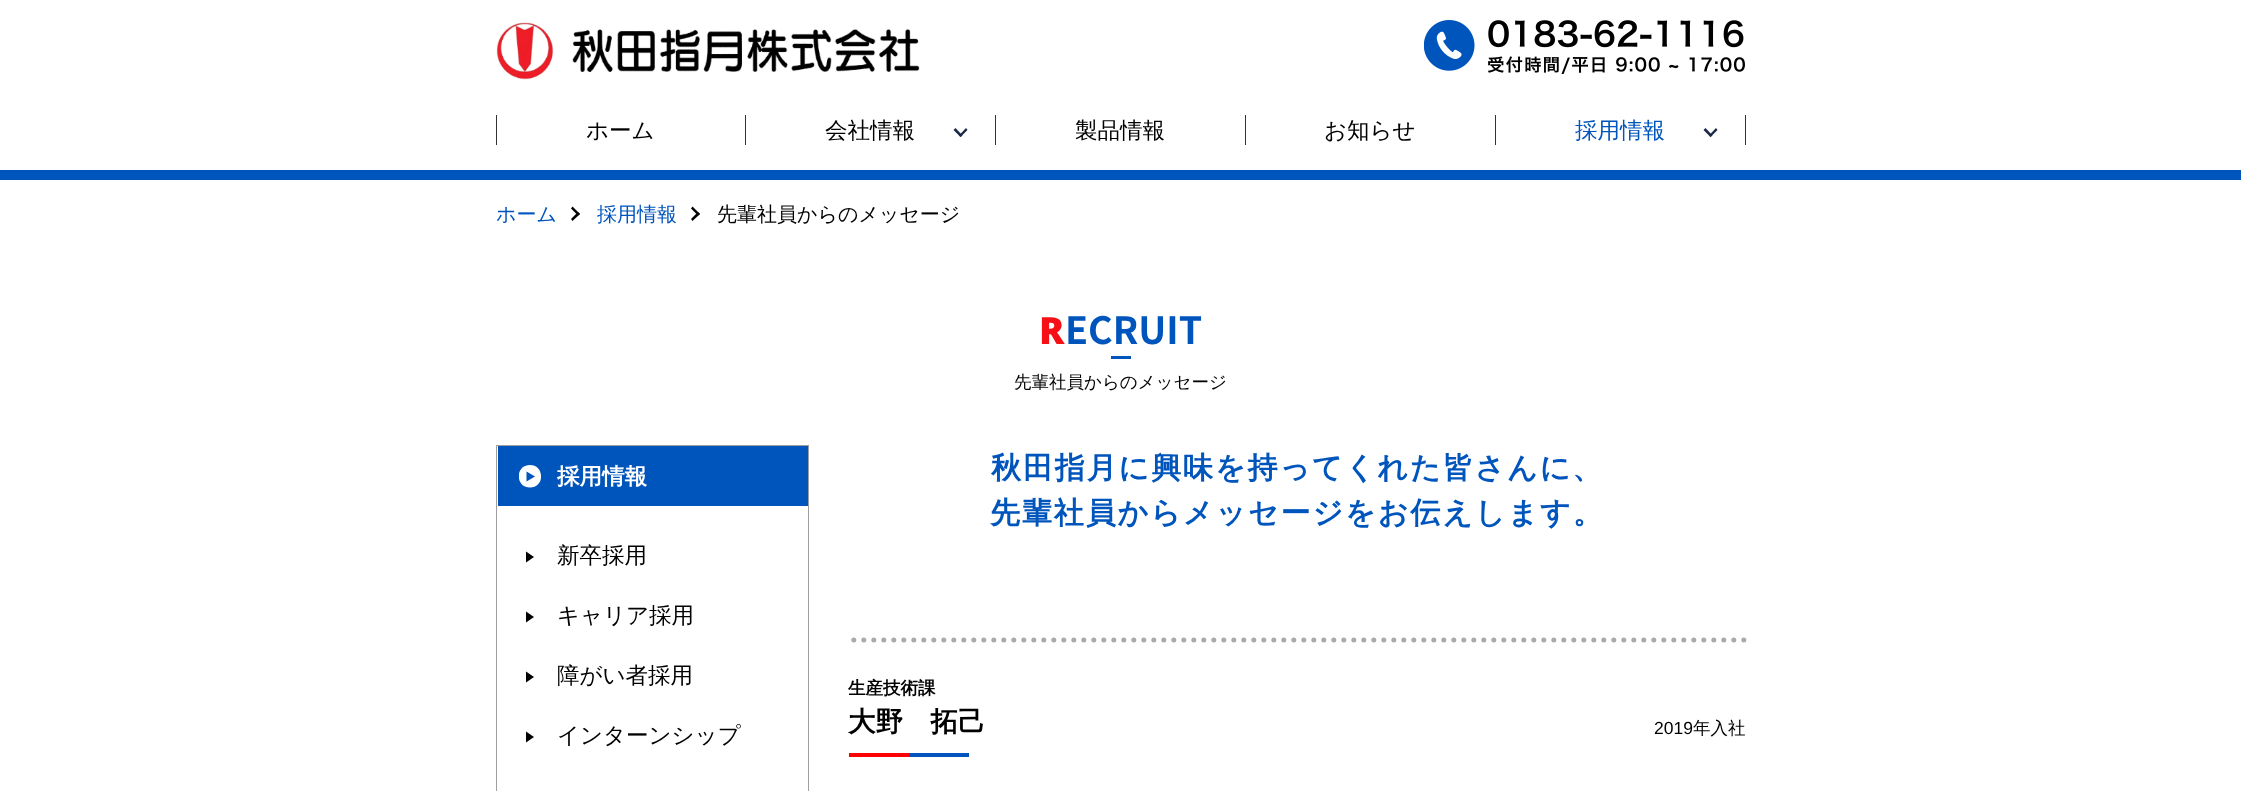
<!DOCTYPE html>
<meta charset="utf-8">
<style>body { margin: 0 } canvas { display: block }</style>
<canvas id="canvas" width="2241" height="791"></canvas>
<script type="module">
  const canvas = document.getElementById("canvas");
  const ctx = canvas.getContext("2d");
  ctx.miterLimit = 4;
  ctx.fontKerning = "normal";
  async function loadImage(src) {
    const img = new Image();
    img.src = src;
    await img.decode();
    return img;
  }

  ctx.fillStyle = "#ffffff";
  ctx.fillRect(0, 0, 2241, 791);
  ctx.fillStyle = "#0055bc";
  ctx.fillRect(0, 170, 2241, 10);
  ctx.drawImage(await loadImage("img1.png"), 496, 22, 424, 58);
  ctx.drawImage(await loadImage("img2.png"), 1424, 20, 321, 54);
  ctx.fillStyle = "#333333";
  ctx.fillRect(745, 115, 1, 30);
  ctx.fillRect(496, 115, 1, 30);
  ctx.font = "500 22.5px WenQuanYi Zen Hei";
  ctx.fillStyle = "#000000";
  ctx.fillText("ホーム", 586, 138);
  ctx.fillStyle = "#333333";
  ctx.fillRect(995, 115, 1, 30);
  ctx.fillStyle = "#000000";
  ctx.fillText("会社情報", 825, 138);
  ctx.fillStyle = "#1a2946";
  ctx.beginPath();
  ctx.moveTo(966, 128);
  ctx.lineTo(967.5, 130);
  ctx.lineTo(960.5, 137);
  ctx.lineTo(959, 135.5);
  ctx.closePath();
  ctx.fill();
  ctx.beginPath();
  ctx.moveTo(955.5, 128);
  ctx.lineTo(962.5, 135.5);
  ctx.lineTo(960.5, 137);
  ctx.lineTo(953.5, 130);
  ctx.closePath();
  ctx.fill();
  ctx.fillStyle = "#333333";
  ctx.fillRect(1245, 115, 1, 30);
  ctx.fillStyle = "#000000";
  ctx.fillText("製品情報", 1075, 138);
  ctx.fillStyle = "#333333";
  ctx.fillRect(1495, 115, 1, 30);
  ctx.fillStyle = "#000000";
  ctx.fillText("お知らせ", 1324, 138);
  ctx.fillStyle = "#333333";
  ctx.fillRect(1745, 115, 1, 30);
  ctx.fillStyle = "#0055bc";
  ctx.fillText("採用情報", 1575, 138);
  ctx.fillStyle = "#1a2946";
  ctx.beginPath();
  ctx.moveTo(1716, 128);
  ctx.lineTo(1717.5, 130);
  ctx.lineTo(1710.5, 137);
  ctx.lineTo(1709, 135.5);
  ctx.closePath();
  ctx.fill();
  ctx.beginPath();
  ctx.moveTo(1705.5, 128);
  ctx.lineTo(1712.5, 135.5);
  ctx.lineTo(1710.5, 137);
  ctx.lineTo(1703.5, 130);
  ctx.closePath();
  ctx.fill();
  ctx.font = "500 20px WenQuanYi Zen Hei";
  ctx.fillStyle = "#0055bc";
  ctx.fillText("ホーム", 496, 221);
  ctx.fillStyle = "#000000";
  ctx.beginPath();
  ctx.moveTo(572.5, 206.5);
  ctx.lineTo(580, 214);
  ctx.lineTo(578, 215.5);
  ctx.lineTo(571, 208.5);
  ctx.closePath();
  ctx.fill();
  ctx.beginPath();
  ctx.moveTo(578, 212);
  ctx.lineTo(580, 214);
  ctx.lineTo(572.5, 221);
  ctx.lineTo(571, 219);
  ctx.closePath();
  ctx.fill();
  ctx.fillStyle = "#0055bc";
  ctx.fillText("採用情報", 597, 221);
  ctx.fillStyle = "#000000";
  ctx.beginPath();
  ctx.moveTo(692.5, 206.5);
  ctx.lineTo(700, 214);
  ctx.lineTo(698, 215.5);
  ctx.lineTo(691, 208.5);
  ctx.closePath();
  ctx.fill();
  ctx.beginPath();
  ctx.moveTo(698, 212);
  ctx.lineTo(700, 214);
  ctx.lineTo(692.5, 221);
  ctx.lineTo(691, 219);
  ctx.closePath();
  ctx.fill();
  ctx.fillText("先輩社員からのメッセージ", 717, 221);
  ctx.font = "900 37.5px Noto Sans";
  ctx.fillStyle = "#f61016";
  ctx.fillText("R", 1039, 344);
  ctx.font = "100 37.5px Noto Sans JP";
  ctx.fillStyle = "#0055bc";
  ctx.fillText("ECRUIT", 1065, 344);
  ctx.fillRect(1111, 356, 20, 3);
  ctx.font = "500 17.5px WenQuanYi Zen Hei";
  ctx.fillStyle = "#000000";
  ctx.fillText("先輩社員からのメッセージ", 1014, 388);
  ctx.fillStyle = "#9f9f9f";
  ctx.fillRect(496, 445, 313, 1);
  ctx.fillRect(808, 445, 1, 346);
  ctx.fillRect(496, 445, 1, 346);
  ctx.fillStyle = "#0055bc";
  ctx.fillRect(498, 446, 310, 60);
  ctx.save();
  ctx.beginPath();
  ctx.rect(519, 465, 22, 23);
  ctx.clip();
  ctx.fillStyle = "#ffffff";
  ctx.beginPath();
  ctx.moveTo(530, 465);
  ctx.bezierCurveTo(515, 465, 515, 487.5, 530, 487.5);
  ctx.bezierCurveTo(545, 487.5, 544.5, 465, 530, 465);
  ctx.closePath();
  ctx.moveTo(526.5, 481.5);
  ctx.lineTo(526.5, 471.5);
  ctx.lineTo(535, 476.5);
  ctx.closePath();
  ctx.fill();
  ctx.restore();
  ctx.font = "bold 22.5px WenQuanYi Zen Hei";
  ctx.fillStyle = "#ffffff";
  ctx.fillText("採用情報", 557, 484);
  ctx.fillStyle = "#000000";
  ctx.beginPath();
  ctx.moveTo(526, 559);
  ctx.lineTo(526, 562.5);
  ctx.lineTo(534, 557);
  ctx.lineTo(526, 551.5);
  ctx.closePath();
  ctx.fill();
  ctx.font = "500 22.5px WenQuanYi Zen Hei";
  ctx.fillText("新卒採用", 557, 563);
  ctx.beginPath();
  ctx.moveTo(526, 619);
  ctx.lineTo(526, 622.5);
  ctx.lineTo(534, 617);
  ctx.lineTo(526, 611.5);
  ctx.closePath();
  ctx.fill();
  ctx.fillText("キャリア採用", 557, 623);
  ctx.beginPath();
  ctx.moveTo(526, 679);
  ctx.lineTo(526, 682.5);
  ctx.lineTo(534, 677);
  ctx.lineTo(526, 671.5);
  ctx.closePath();
  ctx.fill();
  ctx.fillText("障がい者採用", 557, 683);
  ctx.beginPath();
  ctx.moveTo(526, 739);
  ctx.lineTo(526, 742.5);
  ctx.lineTo(534, 737);
  ctx.lineTo(526, 731.5);
  ctx.closePath();
  ctx.fill();
  ctx.fillText("インターンシップ", 557, 743);
  ctx.letterSpacing = "1.9px";
  ctx.font = "bold 30px WenQuanYi Zen Hei";
  ctx.fillStyle = "#0055bc";
  ctx.fillText("秋田指月に興味を持ってくれた皆さんに、", 991, 478);
  ctx.fillText("先輩社員からメッセージをお伝えします。", 990, 523);
  ctx.beginPath();
  ctx.moveTo(853.8, 640);
  ctx.lineTo(1744, 640);
  ctx.strokeStyle = "#aaaaaa";
  ctx.lineWidth = 5;
  ctx.lineCap = "round";
  ctx.setLineDash([0, 10]);
  ctx.stroke();
  ctx.letterSpacing = "0px";
  ctx.font = "bold 17.5px WenQuanYi Zen Hei";
  ctx.fillStyle = "#000000";
  ctx.fillText("生産技術課", 848, 694);
  ctx.font = "bold 27.5px WenQuanYi Zen Hei";
  ctx.fillText("大野　拓己", 848, 731);
  ctx.fillStyle = "#fe0002";
  ctx.fillRect(849, 753, 60, 4);
  ctx.fillStyle = "#0055bc";
  ctx.fillRect(909, 753, 60, 4);
  ctx.font = "17.5px Liberation Sans";
  ctx.fillStyle = "#000000";
  ctx.fillText("2019", 1654, 734);
  ctx.font = "500 17.5px WenQuanYi Zen Hei";
  ctx.fillText("年入社", 1693, 734);
</script>
